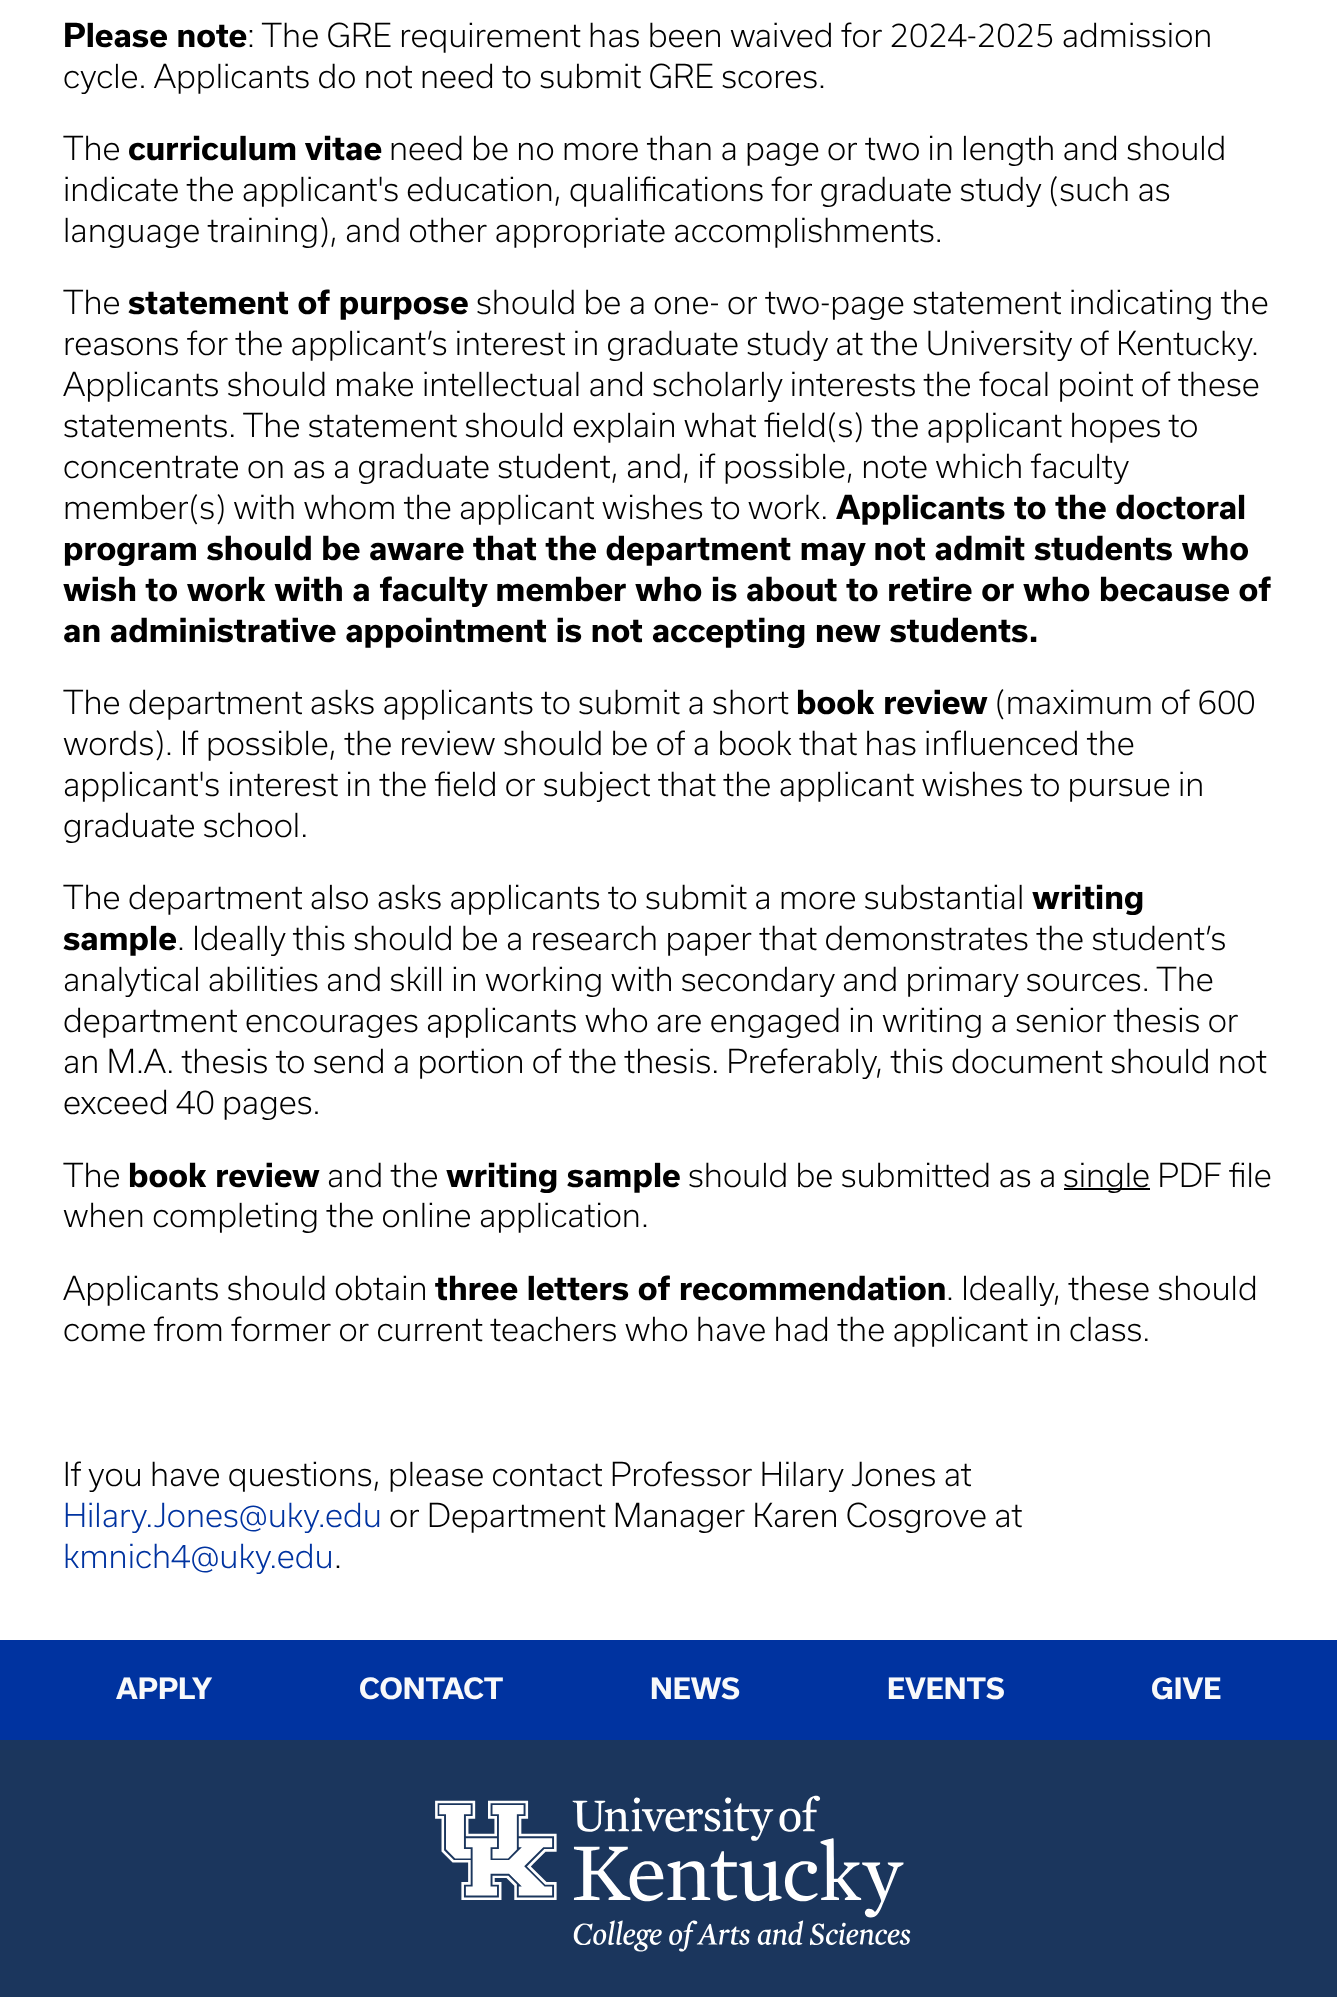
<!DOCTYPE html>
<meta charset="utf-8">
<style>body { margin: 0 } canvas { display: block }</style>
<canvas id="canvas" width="1337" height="1997"></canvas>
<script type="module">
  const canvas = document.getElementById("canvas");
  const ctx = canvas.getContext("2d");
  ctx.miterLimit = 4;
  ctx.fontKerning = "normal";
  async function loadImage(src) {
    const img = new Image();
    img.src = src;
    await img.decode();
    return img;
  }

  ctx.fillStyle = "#ffffff";
  ctx.fillRect(0, 0, 1337, 1997);
  ctx.font = "bold 31.5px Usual";
  ctx.fillStyle = "#000000";
  ctx.fillText("Please note", 63, 47);
  ctx.font = "300 31.5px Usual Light";
  ctx.fillText(": The GRE requirement has been waived for 2024-2025 admission", 247, 47);
  ctx.fillText("cycle. Applicants do not need to submit GRE scores.", 63, 88);
  ctx.fillText("The", 63, 160);
  ctx.font = "bold 31.5px Usual";
  ctx.fillText("curriculum vitae", 128, 160);
  ctx.font = "300 31.5px Usual Light";
  ctx.fillText("need be no more than a page or two in length and should", 389, 160);
  ctx.fillText("indicate the applicant's education, qualifications for graduate study (such as", 63, 201);
  ctx.fillText("language training), and other appropriate accomplishments.", 63, 242);
  ctx.fillText("The", 63, 314);
  ctx.font = "bold 31.5px Usual";
  ctx.fillText("statement of purpose", 128, 314);
  ctx.font = "300 31.5px Usual Light";
  ctx.fillText("should be a one- or two-page statement indicating the", 476, 314);
  ctx.fillText("reasons for the applicant’s interest in graduate study at the University of Kentucky.", 63, 355);
  ctx.fillText("Applicants should make intellectual and scholarly interests the focal point of these", 63, 396);
  ctx.fillText("statements. The statement should explain what field(s) the applicant hopes to", 63, 437);
  ctx.fillText("concentrate on as a graduate student, and, if possible, note which faculty", 63, 478);
  ctx.fillText("member(s) with whom the applicant wishes to work.", 63, 519);
  ctx.font = "bold 31.5px Usual";
  ctx.fillText("Applicants to the doctoral", 836, 519);
  ctx.fillText("program should be aware that the department may not admit students who", 63, 560);
  ctx.fillText("wish to work with a faculty member who is about to retire or who because of", 63, 601);
  ctx.fillText("an administrative appointment is not accepting new students.", 63, 642);
  ctx.font = "300 31.5px Usual Light";
  ctx.fillText("The department asks applicants to submit a short", 63, 714);
  ctx.font = "bold 31.5px Usual";
  ctx.fillText("book review", 796, 714);
  ctx.font = "300 31.5px Usual Light";
  ctx.fillText("(maximum of 600", 995, 714);
  ctx.fillText("words). If possible, the review should be of a book that has influenced the", 63, 755);
  ctx.fillText("applicant's interest in the field or subject that the applicant wishes to pursue in", 63, 796);
  ctx.fillText("graduate school.", 63, 837);
  ctx.fillText("The department also asks applicants to submit a more substantial", 63, 909);
  ctx.font = "bold 31.5px Usual";
  ctx.fillText("writing", 1032, 909);
  ctx.fillText("sample", 63, 950);
  ctx.font = "300 31.5px Usual Light";
  ctx.fillText(". Ideally this should be a research paper that demonstrates the student’s", 177, 950);
  ctx.fillText("analytical abilities and skill in working with secondary and primary sources. The", 63, 991);
  ctx.fillText("department encourages applicants who are engaged in writing a senior thesis or", 63, 1032);
  ctx.fillText("an M.A. thesis to send a portion of the thesis. Preferably, this document should not", 63, 1073);
  ctx.fillText("exceed 40 pages.", 63, 1114);
  ctx.fillText("The", 63, 1187);
  ctx.font = "bold 31.5px Usual";
  ctx.fillText("book review", 128, 1187);
  ctx.font = "300 31.5px Usual Light";
  ctx.fillText("and the", 327, 1187);
  ctx.font = "bold 31.5px Usual";
  ctx.fillText("writing sample", 446, 1187);
  ctx.font = "300 31.5px Usual Light";
  ctx.fillText("should be submitted as a", 688, 1187);
  ctx.fillRect(1064, 1188, 86, 2);
  ctx.fillText("single PDF file", 1063, 1187);
  ctx.fillText("when completing the online application.", 63, 1227);
  ctx.fillText("Applicants should obtain", 63, 1300);
  ctx.font = "bold 31.5px Usual";
  ctx.fillText("three letters of recommendation", 435, 1300);
  ctx.font = "300 31.5px Usual Light";
  ctx.fillText(". Ideally, these should", 946, 1300);
  ctx.fillText("come from former or current teachers who have had the applicant in class.", 63, 1341);
  ctx.fillText("If you have questions, please contact Professor Hilary Jones at", 63, 1486);
  ctx.fillStyle = "#0033a0";
  ctx.fillText("Hilary.Jones@uky.edu", 63, 1527);
  ctx.fillStyle = "#000000";
  ctx.fillText("or Department Manager Karen Cosgrove at", 389, 1527);
  ctx.fillStyle = "#0033a0";
  ctx.fillText("kmnich4@uky.edu", 63, 1568);
  ctx.fillStyle = "#000000";
  ctx.fillText(".", 334, 1568);
  ctx.fillStyle = "#1b365d";
  ctx.fillRect(0, 1740, 1337, 257);
  ctx.fillStyle = "#0033a0";
  ctx.fillRect(0, 1640, 1337, 100);
  ctx.font = "bold 28px Usual";
  ctx.fillStyle = "#f8f9fa";
  ctx.fillText("APPLY", 116, 1699);
  ctx.fillText("CONTACT", 359, 1699);
  ctx.fillText("NEWS", 650, 1699);
  ctx.fillText("EVENTS", 887, 1699);
  ctx.fillText("GIVE", 1151, 1699);
  ctx.drawImage(await loadImage("img1.png"), 435, 1795, 476, 157);
</script>
